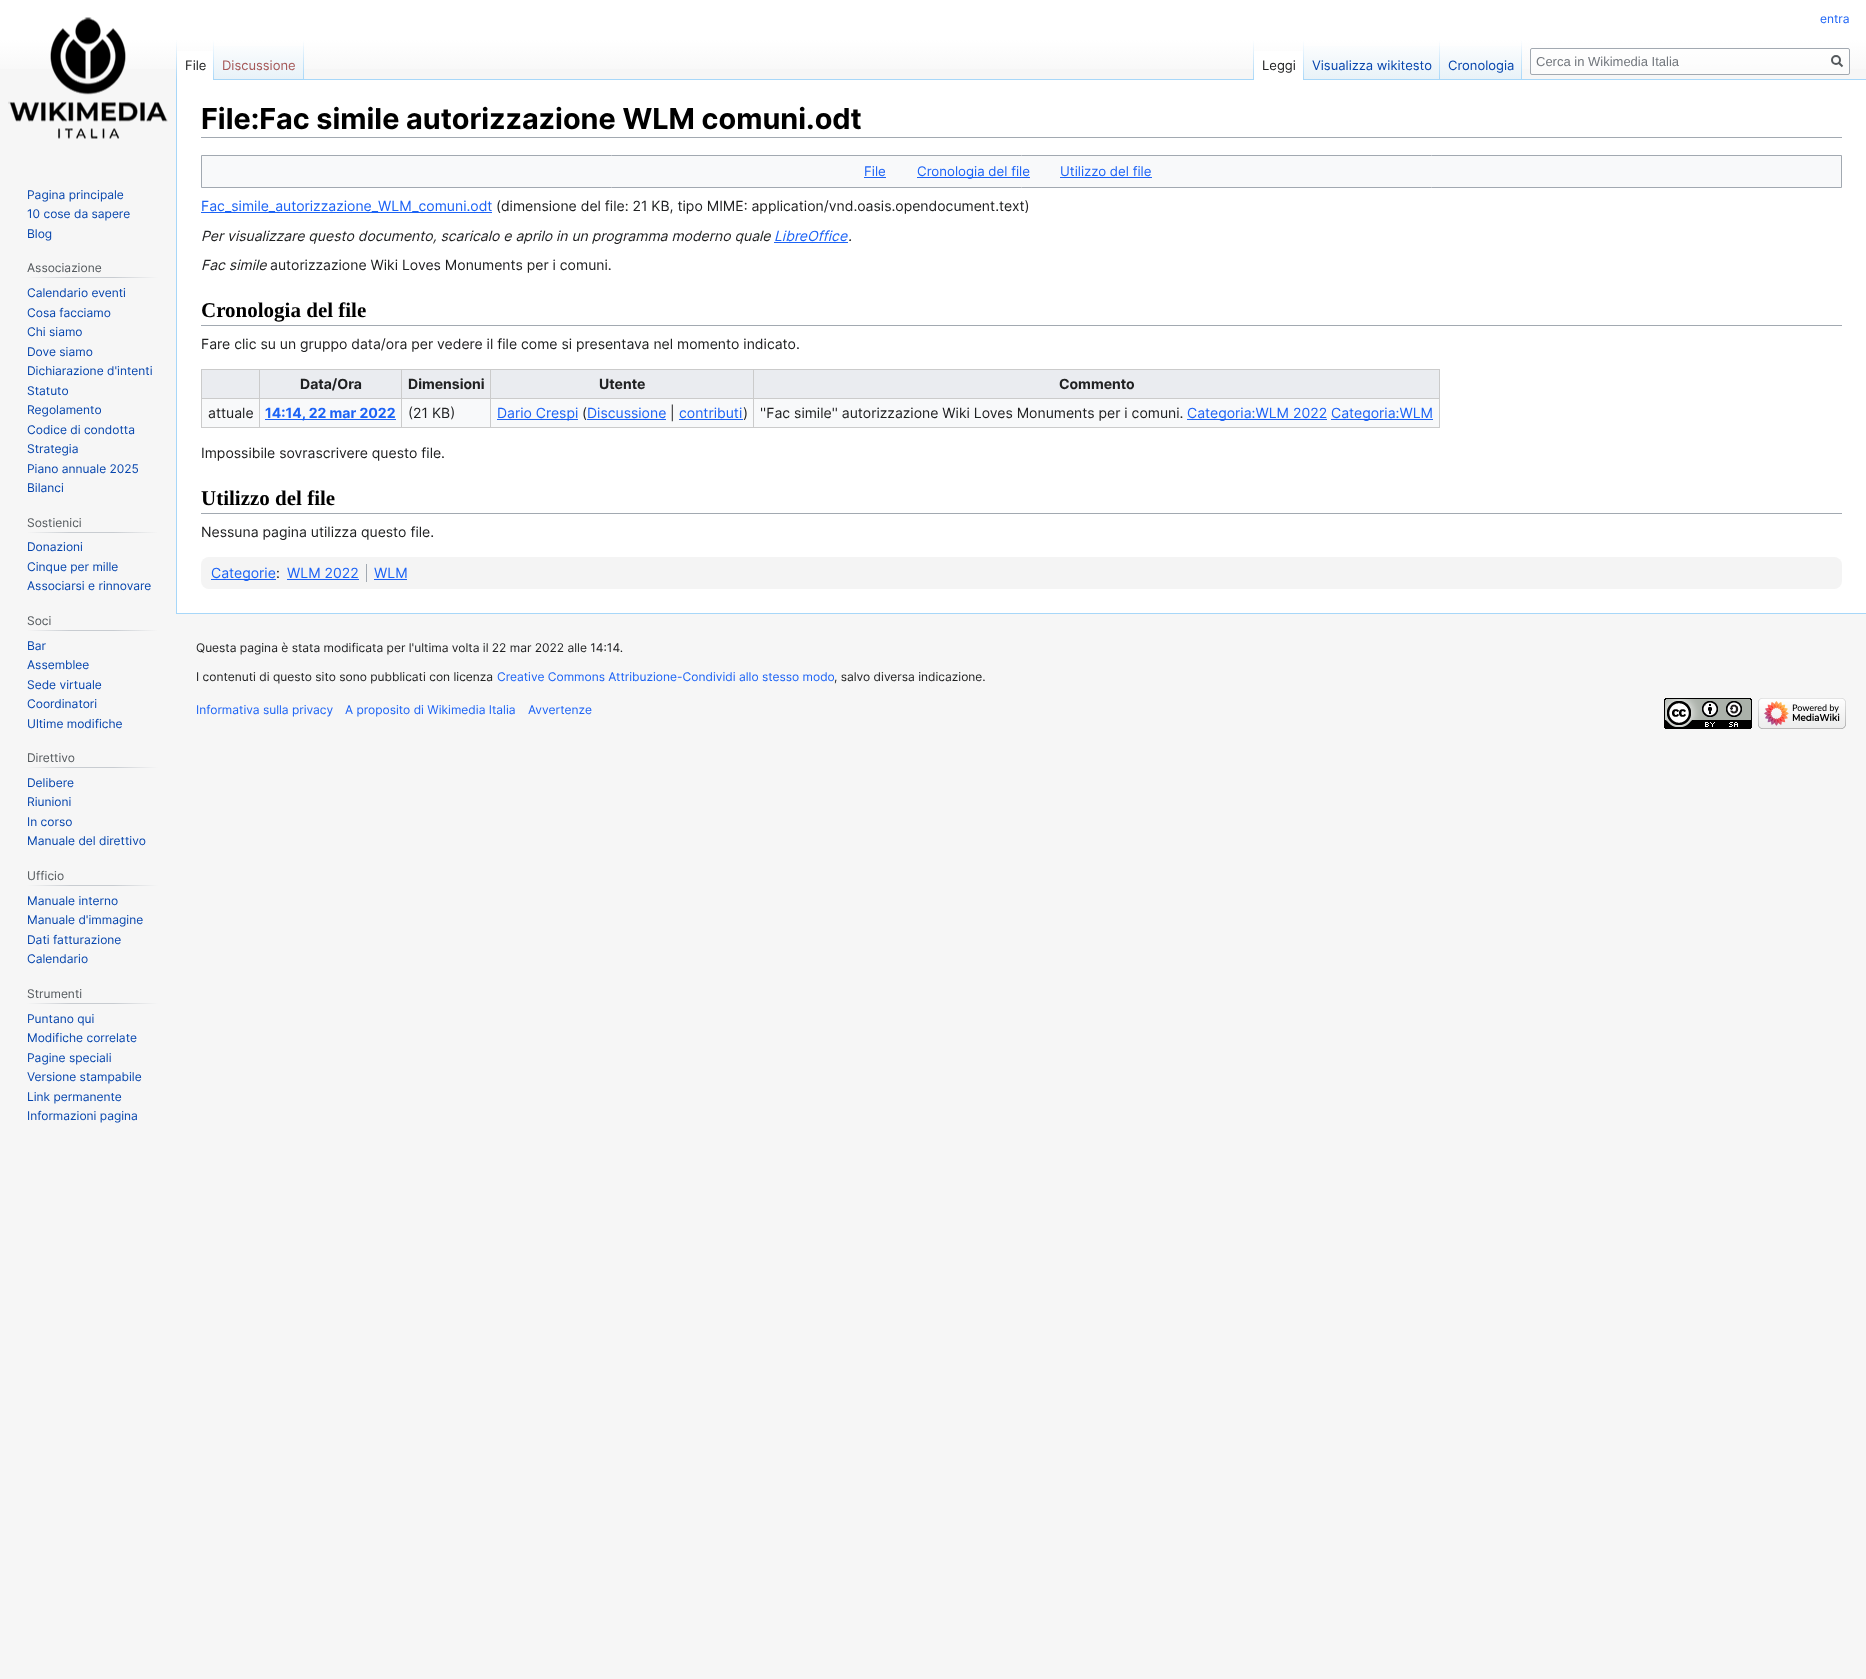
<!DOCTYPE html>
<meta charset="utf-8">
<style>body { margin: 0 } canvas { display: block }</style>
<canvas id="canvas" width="1866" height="1679"></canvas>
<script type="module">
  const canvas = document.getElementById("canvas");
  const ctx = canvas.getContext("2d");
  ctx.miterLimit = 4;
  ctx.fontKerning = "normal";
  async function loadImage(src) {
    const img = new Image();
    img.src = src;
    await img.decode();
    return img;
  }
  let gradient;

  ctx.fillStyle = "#f6f6f6";
  ctx.fillRect(0, 0, 1866, 1679);
  gradient = ctx.createLinearGradient(933, 0, 933, 80);
  gradient.addColorStop(0.5, "#ffffff");
  gradient.addColorStop(1, "#f6f6f6");
  ctx.fillStyle = gradient;
  ctx.fillRect(0, 0, 1866, 69);
  ctx.font = "12px Inter";
  ctx.fillStyle = "#1c63f5";
  ctx.fillText("entra", 1820, 23);
  ctx.fillStyle = "#a7d7f9";
  ctx.fillRect(176, 613, 1690, 1);
  ctx.fillRect(176, 79, 1, 535);
  gradient = ctx.createLinearGradient(177, 40, 177, 80);
  gradient.addColorStop(0, "rgba(167, 215, 249, 0)");
  gradient.addColorStop(1, "#a7d7f9");
  ctx.fillStyle = gradient;
  ctx.fillRect(176, 40, 1, 40);
  ctx.fillStyle = "#ffffff";
  ctx.fillRect(177, 51, 36, 29);
  gradient = ctx.createLinearGradient(214, 40, 214, 80);
  gradient.addColorStop(0, "#ffffff");
  gradient.addColorStop(1, "#a7d7f9");
  ctx.fillStyle = gradient;
  ctx.fillRect(213, 40, 1, 40);
  ctx.font = "13px Inter";
  ctx.fillStyle = "#202122";
  ctx.fillText("File", 185, 70);
  gradient = ctx.createLinearGradient(259, 80, 259, 40);
  gradient.addColorStop(0, "#77c1f6");
  gradient.addColorStop(0.03, "#e8f2f8");
  gradient.addColorStop(1, "#ffffff");
  ctx.fillStyle = gradient;
  ctx.fillRect(214, 46, 90, 34);
  gradient = ctx.createLinearGradient(304, 40, 304, 80);
  gradient.addColorStop(0, "rgba(167, 215, 249, 0)");
  gradient.addColorStop(1, "#a7d7f9");
  ctx.fillStyle = gradient;
  ctx.fillRect(303, 40, 1, 40);
  ctx.fillStyle = "#a55858";
  ctx.fillText("Discussione", 222, 70);
  ctx.fillStyle = "#a7d7f9";
  ctx.fillRect(304, 79, 1562, 1);
  gradient = ctx.createLinearGradient(1254, 40, 1254, 80);
  gradient.addColorStop(0, "rgba(167, 215, 249, 0)");
  gradient.addColorStop(1, "#a7d7f9");
  ctx.fillStyle = gradient;
  ctx.fillRect(1253, 40, 1, 40);
  ctx.fillStyle = "#ffffff";
  ctx.fillRect(1254, 51, 49, 29);
  gradient = ctx.createLinearGradient(1304, 40, 1304, 80);
  gradient.addColorStop(0, "#ffffff");
  gradient.addColorStop(1, "#a7d7f9");
  ctx.fillStyle = gradient;
  ctx.fillRect(1303, 40, 1, 40);
  ctx.fillStyle = "#202122";
  ctx.fillText("Leggi", 1262, 70);
  gradient = ctx.createLinearGradient(1372, 80, 1372, 40);
  gradient.addColorStop(0, "#77c1f6");
  gradient.addColorStop(0.03, "#e8f2f8");
  gradient.addColorStop(1, "#ffffff");
  ctx.fillStyle = gradient;
  ctx.fillRect(1304, 46, 136, 33);
  gradient = ctx.createLinearGradient(1440, 40, 1440, 80);
  gradient.addColorStop(0, "rgba(167, 215, 249, 0)");
  gradient.addColorStop(1, "#a7d7f9");
  ctx.fillStyle = gradient;
  ctx.fillRect(1439, 40, 1, 40);
  ctx.fillStyle = "#0645ad";
  ctx.fillText("Visualizza wikitesto", 1312, 70);
  gradient = ctx.createLinearGradient(1481, 80, 1481, 40);
  gradient.addColorStop(0, "#77c1f6");
  gradient.addColorStop(0.03, "#e8f2f8");
  gradient.addColorStop(1, "#ffffff");
  ctx.fillStyle = gradient;
  ctx.fillRect(1440, 46, 82, 33);
  gradient = ctx.createLinearGradient(1522, 40, 1522, 80);
  gradient.addColorStop(0, "rgba(167, 215, 249, 0)");
  gradient.addColorStop(1, "#a7d7f9");
  ctx.fillStyle = gradient;
  ctx.fillRect(1521, 40, 1, 40);
  ctx.fillStyle = "#0645ad";
  ctx.fillText("Cronologia", 1448, 70);
  ctx.fillStyle = "rgba(255, 255, 255, 0.5)";
  ctx.beginPath();
  ctx.roundRect(1530.5, 48.5, 319, 26, 1.5);
  ctx.fill();
  ctx.strokeStyle = "#a2a9b1";
  ctx.stroke();
  ctx.font = "13px Liberation Sans";
  ctx.fillStyle = "#72777d";
  ctx.fillText("Cerca in Wikimedia Italia", 1536, 66);
  ctx.beginPath();
  ctx.moveTo(1842.5, 66.5);
  ctx.lineTo(1838.5, 62.5);
  ctx.strokeStyle = "#54595d";
  ctx.lineWidth = 2;
  ctx.stroke();
  ctx.beginPath();
  ctx.arc(1836, 60, 4, 0, Math.PI * 2);
  ctx.stroke();
  ctx.drawImage(await loadImage("img1.png"), 8, 17, 160, 122);
  ctx.font = "12px Inter";
  ctx.fillStyle = "#0645ad";
  ctx.fillText("Pagina principale", 27, 199);
  ctx.fillText("10 cose da sapere", 27, 218);
  ctx.fillText("Blog", 27, 238);
  gradient = ctx.createLinearGradient(27, 278, 158, 278);
  gradient.addColorStop(0, "#f6f6f6");
  gradient.addColorStop(0.33, "#c8ccd1");
  gradient.addColorStop(0.66, "#c8ccd1");
  gradient.addColorStop(1, "#f6f6f6");
  ctx.fillStyle = gradient;
  ctx.fillRect(27, 277, 131, 1);
  ctx.fillStyle = "#54595d";
  ctx.fillText("Associazione", 27, 272);
  ctx.fillStyle = "#0645ad";
  ctx.fillText("Calendario eventi", 27, 297);
  ctx.fillText("Cosa facciamo", 27, 317);
  ctx.fillText("Chi siamo", 27, 336);
  ctx.fillText("Dove siamo", 27, 356);
  ctx.fillText("Dichiarazione d'intenti", 27, 375);
  ctx.fillText("Statuto", 27, 395);
  ctx.fillText("Regolamento", 27, 414);
  ctx.fillText("Codice di condotta", 27, 434);
  ctx.fillText("Strategia", 27, 453);
  ctx.fillText("Piano annuale 2025", 27, 473);
  ctx.fillText("Bilanci", 27, 492);
  gradient = ctx.createLinearGradient(27, 533, 158, 533);
  gradient.addColorStop(0, "#f6f6f6");
  gradient.addColorStop(0.33, "#c8ccd1");
  gradient.addColorStop(0.66, "#c8ccd1");
  gradient.addColorStop(1, "#f6f6f6");
  ctx.fillStyle = gradient;
  ctx.fillRect(27, 532, 131, 1);
  ctx.fillStyle = "#54595d";
  ctx.fillText("Sostienici", 27, 527);
  ctx.fillStyle = "#0645ad";
  ctx.fillText("Donazioni", 27, 551);
  ctx.fillText("Cinque per mille", 27, 571);
  ctx.fillText("Associarsi e rinnovare", 27, 590);
  gradient = ctx.createLinearGradient(27, 631, 158, 631);
  gradient.addColorStop(0, "#f6f6f6");
  gradient.addColorStop(0.33, "#c8ccd1");
  gradient.addColorStop(0.66, "#c8ccd1");
  gradient.addColorStop(1, "#f6f6f6");
  ctx.fillStyle = gradient;
  ctx.fillRect(27, 630, 131, 1);
  ctx.fillStyle = "#54595d";
  ctx.fillText("Soci", 27, 625);
  ctx.fillStyle = "#0645ad";
  ctx.fillText("Bar", 27, 650);
  ctx.fillText("Assemblee", 27, 669);
  ctx.fillText("Sede virtuale", 27, 689);
  ctx.fillText("Coordinatori", 27, 708);
  ctx.fillText("Ultime modifiche", 27, 728);
  gradient = ctx.createLinearGradient(27, 768, 158, 768);
  gradient.addColorStop(0, "#f6f6f6");
  gradient.addColorStop(0.33, "#c8ccd1");
  gradient.addColorStop(0.66, "#c8ccd1");
  gradient.addColorStop(1, "#f6f6f6");
  ctx.fillStyle = gradient;
  ctx.fillRect(27, 767, 131, 1);
  ctx.fillStyle = "#54595d";
  ctx.fillText("Direttivo", 27, 762);
  ctx.fillStyle = "#0645ad";
  ctx.fillText("Delibere", 27, 787);
  ctx.fillText("Riunioni", 27, 806);
  ctx.fillText("In corso", 27, 826);
  ctx.fillText("Manuale del direttivo", 27, 845);
  gradient = ctx.createLinearGradient(27, 886, 158, 886);
  gradient.addColorStop(0, "#f6f6f6");
  gradient.addColorStop(0.33, "#c8ccd1");
  gradient.addColorStop(0.66, "#c8ccd1");
  gradient.addColorStop(1, "#f6f6f6");
  ctx.fillStyle = gradient;
  ctx.fillRect(27, 885, 131, 1);
  ctx.fillStyle = "#54595d";
  ctx.fillText("Ufficio", 27, 880);
  ctx.fillStyle = "#0645ad";
  ctx.fillText("Manuale interno", 27, 905);
  ctx.fillText("Manuale d'immagine", 27, 924);
  ctx.fillText("Dati fatturazione", 27, 944);
  ctx.fillText("Calendario", 27, 963);
  gradient = ctx.createLinearGradient(27, 1004, 158, 1004);
  gradient.addColorStop(0, "#f6f6f6");
  gradient.addColorStop(0.33, "#c8ccd1");
  gradient.addColorStop(0.66, "#c8ccd1");
  gradient.addColorStop(1, "#f6f6f6");
  ctx.fillStyle = gradient;
  ctx.fillRect(27, 1003, 131, 1);
  ctx.fillStyle = "#54595d";
  ctx.fillText("Strumenti", 27, 998);
  ctx.fillStyle = "#0645ad";
  ctx.fillText("Puntano qui", 27, 1023);
  ctx.fillText("Modifiche correlate", 27, 1042);
  ctx.fillText("Pagine speciali", 27, 1062);
  ctx.fillText("Versione stampabile", 27, 1081);
  ctx.fillText("Link permanente", 27, 1101);
  ctx.fillText("Informazioni pagina", 27, 1120);
  ctx.fillStyle = "#ffffff";
  ctx.fillRect(177, 80, 1689, 533);
  ctx.fillStyle = "#a2a9b1";
  ctx.fillRect(201, 137, 1641, 1);
  ctx.font = "bold 28.8px Inter";
  ctx.fillStyle = "#000000";
  ctx.fillText("File:Fac simile autorizzazione WLM comuni.odt", 201, 129);
  ctx.fillStyle = "#f8f9fa";
  ctx.beginPath();
  ctx.rect(201.5, 155.5, 1640, 32);
  ctx.fill();
  ctx.strokeStyle = "#a2a9b1";
  ctx.lineWidth = 1;
  ctx.stroke();
  ctx.font = "13.25px Inter";
  ctx.fillStyle = "#1c63f5";
  ctx.fillText("File", 864, 176);
  ctx.fillRect(864, 177, 22, 1);
  ctx.fillRect(917, 177, 113, 1);
  ctx.fillText("Cronologia del file", 917, 176);
  ctx.fillText("Utilizzo del file", 1060, 176);
  ctx.fillRect(1060, 177, 92, 1);
  ctx.fillRect(201, 212, 291, 1);
  ctx.font = "14px Inter";
  ctx.fillText("Fac_simile_autorizzazione_WLM_comuni.odt", 201, 211);
  ctx.fillStyle = "#202122";
  ctx.fillText("(dimensione del file: 21 KB, tipo MIME: application/vnd.oasis.opendocument.text)", 496, 211);
  ctx.font = "italic 14px Inter";
  ctx.fillText("Per visualizzare questo documento, scaricalo e aprilo in un programma moderno quale", 201, 241);
  ctx.fillStyle = "#1c63f5";
  ctx.fillText("LibreOffice", 774, 241);
  ctx.fillStyle = "#202122";
  ctx.fillText(".", 848, 241);
  ctx.fillStyle = "#1c63f5";
  ctx.fillRect(774, 242, 74, 1);
  ctx.fillStyle = "#202122";
  ctx.fillText("Fac simile", 201, 270);
  ctx.font = "14px Inter";
  ctx.fillText("autorizzazione Wiki Loves Monuments per i comuni.", 270, 270);
  ctx.fillStyle = "#a2a9b1";
  ctx.fillRect(201, 325, 1641, 1);
  ctx.font = "bold 21px Liberation Serif";
  ctx.fillStyle = "#000000";
  ctx.fillText("Cronologia del file", 201, 317);
  ctx.font = "14px Inter";
  ctx.fillStyle = "#202122";
  ctx.fillText("Fare clic su un gruppo data/ora per vedere il file come si presentava nel momento indicato.", 201, 349);
  ctx.fillStyle = "#f8f9fa";
  ctx.fillRect(202, 399, 1237, 28);
  ctx.fillStyle = "#eaecf0";
  ctx.fillRect(202, 370, 57, 28);
  ctx.fillStyle = "#cbcbcb";
  ctx.fillRect(753, 369, 687, 1);
  ctx.fillRect(753, 398, 687, 1);
  ctx.fillRect(1439, 398, 1, 30);
  ctx.fillRect(753, 427, 687, 1);
  ctx.fillRect(753, 398, 1, 30);
  ctx.fillRect(490, 398, 264, 1);
  ctx.fillRect(753, 369, 1, 30);
  ctx.fillRect(490, 369, 264, 1);
  ctx.fillRect(490, 427, 264, 1);
  ctx.fillRect(490, 398, 1, 30);
  ctx.fillRect(401, 398, 90, 1);
  ctx.fillRect(490, 369, 1, 30);
  ctx.fillRect(401, 369, 90, 1);
  ctx.fillRect(401, 427, 90, 1);
  ctx.fillRect(401, 398, 1, 30);
  ctx.fillRect(259, 398, 143, 1);
  ctx.fillRect(401, 369, 1, 30);
  ctx.fillRect(259, 369, 143, 1);
  ctx.fillRect(259, 427, 143, 1);
  ctx.fillRect(259, 398, 1, 30);
  ctx.fillRect(201, 398, 59, 1);
  ctx.fillRect(259, 369, 1, 30);
  ctx.fillRect(201, 369, 59, 1);
  ctx.fillRect(201, 427, 59, 1);
  ctx.fillRect(201, 398, 1, 30);
  ctx.fillRect(201, 369, 1, 30);
  ctx.fillStyle = "#eaecf0";
  ctx.fillRect(260, 370, 141, 28);
  ctx.font = "bold 14px Inter";
  ctx.fillStyle = "#202122";
  ctx.fillText("Data/Ora", 300, 389);
  ctx.fillStyle = "#eaecf0";
  ctx.fillRect(402, 370, 88, 28);
  ctx.fillStyle = "#202122";
  ctx.fillText("Dimensioni", 408, 389);
  ctx.fillStyle = "#eaecf0";
  ctx.fillRect(491, 370, 262, 28);
  ctx.fillStyle = "#202122";
  ctx.fillText("Utente", 599, 389);
  ctx.fillStyle = "#eaecf0";
  ctx.fillRect(754, 370, 685, 28);
  ctx.fillStyle = "#cbcbcb";
  ctx.fillRect(1439, 369, 1, 30);
  ctx.fillStyle = "#202122";
  ctx.fillText("Commento", 1059, 389);
  ctx.font = "14px Inter";
  ctx.fillText("attuale", 208, 418);
  ctx.fillStyle = "#1c63f5";
  ctx.fillRect(265, 419, 131, 1);
  ctx.font = "bold 14px Inter";
  ctx.fillText("14:14, 22 mar 2022", 265, 418);
  ctx.font = "14px Inter";
  ctx.fillStyle = "#202122";
  ctx.fillText("(21 KB)", 408, 418);
  ctx.fillStyle = "#1c63f5";
  ctx.fillRect(497, 419, 81, 1);
  ctx.fillText("Dario Crespi", 497, 418);
  ctx.fillStyle = "#202122";
  ctx.fillText("(", 582, 418);
  ctx.fillStyle = "#1c63f5";
  ctx.fillRect(587, 419, 79, 1);
  ctx.fillText("Discussione", 587, 418);
  ctx.fillStyle = "#202122";
  ctx.fillText("|", 670, 418);
  ctx.fillStyle = "#1c63f5";
  ctx.fillText("contributi", 679, 418);
  ctx.fillStyle = "#202122";
  ctx.fillText(")", 743, 418);
  ctx.fillStyle = "#1c63f5";
  ctx.fillRect(679, 419, 64, 1);
  ctx.fillStyle = "#202122";
  ctx.fillText("''Fac simile'' autorizzazione Wiki Loves Monuments per i comuni.", 760, 418);
  ctx.fillStyle = "#1c63f5";
  ctx.fillRect(1187, 419, 140, 1);
  ctx.fillText("Categoria:WLM 2022", 1187, 418);
  ctx.fillRect(1331, 419, 102, 1);
  ctx.fillText("Categoria:WLM", 1331, 418);
  ctx.fillStyle = "#202122";
  ctx.fillText("Impossibile sovrascrivere questo file.", 201, 458);
  ctx.fillStyle = "#a2a9b1";
  ctx.fillRect(201, 513, 1641, 1);
  ctx.font = "bold 21px Liberation Serif";
  ctx.fillStyle = "#000000";
  ctx.fillText("Utilizzo del file", 201, 505);
  ctx.font = "14px Inter";
  ctx.fillStyle = "#202122";
  ctx.fillText("Nessuna pagina utilizza questo file.", 201, 537);
  ctx.fillStyle = "#f4f4f4";
  ctx.beginPath();
  ctx.roundRect(201, 557, 1641, 32, 8);
  ctx.fill();
  ctx.fillStyle = "#1c63f5";
  ctx.fillRect(211, 579, 65, 1);
  ctx.fillText("Categorie", 211, 578);
  ctx.fillStyle = "#202122";
  ctx.fillText(":", 276, 578);
  ctx.fillStyle = "#1c63f5";
  ctx.fillText("WLM 2022", 287, 578);
  ctx.fillRect(287, 579, 72, 1);
  ctx.fillStyle = "#a2a9b1";
  ctx.fillRect(366, 564, 1, 18);
  ctx.fillStyle = "#1c63f5";
  ctx.fillText("WLM", 374, 578);
  ctx.fillRect(374, 579, 33, 1);
  ctx.font = "12px Inter";
  ctx.fillStyle = "#202122";
  ctx.fillText("Questa pagina è stata modificata per l'ultima volta il 22 mar 2022 alle 14:14.", 196, 652);
  ctx.fillText("I contenuti di questo sito sono pubblicati con licenza", 196, 681);
  ctx.fillStyle = "#1c63f5";
  ctx.fillText("Creative Commons Attribuzione-Condividi allo stesso modo", 497, 681);
  ctx.fillStyle = "#202122";
  ctx.fillText(", salvo diversa indicazione.", 834, 681);
  ctx.fillStyle = "#1c63f5";
  ctx.fillText("Informativa sulla privacy", 196, 714);
  ctx.fillText("A proposito di Wikimedia Italia", 345, 714);
  ctx.fillText("Avvertenze", 528, 714);
  ctx.drawImage(await loadImage("img2.png"), 1664, 698, 88, 31);
  ctx.drawImage(await loadImage("img3.png"), 1758, 698, 88, 31);
</script>
